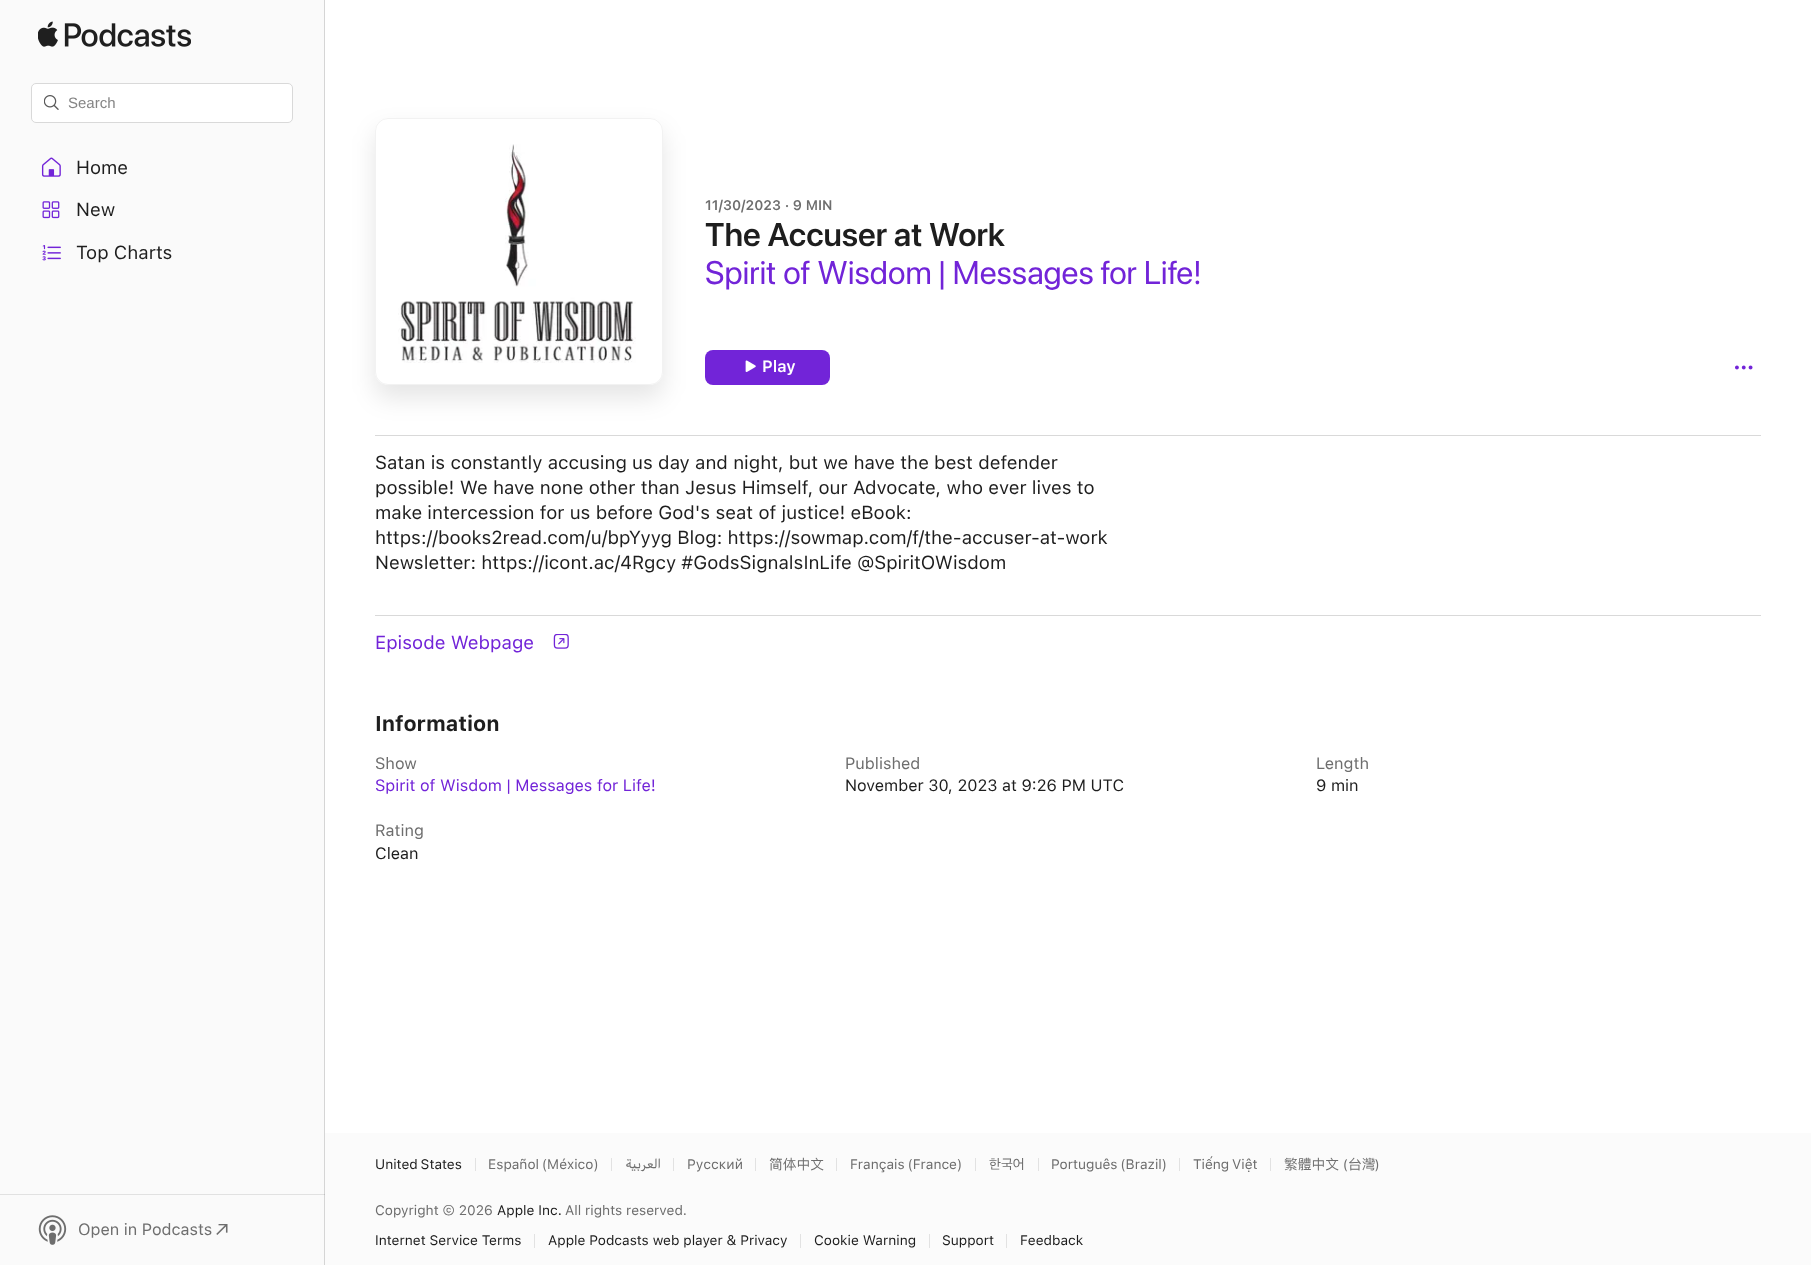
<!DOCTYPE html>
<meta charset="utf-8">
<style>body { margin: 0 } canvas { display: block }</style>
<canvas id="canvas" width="1811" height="1265"></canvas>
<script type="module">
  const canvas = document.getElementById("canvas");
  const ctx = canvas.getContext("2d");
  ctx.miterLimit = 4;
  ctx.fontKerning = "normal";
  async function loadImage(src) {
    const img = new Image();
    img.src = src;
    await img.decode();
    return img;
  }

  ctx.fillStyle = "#ffffff";
  ctx.fillRect(0, 0, 1811, 1265);
  ctx.fillStyle = "#fafafa";
  ctx.fillRect(0, 0, 324, 1265);
  ctx.fillStyle = "#e1e1e1";
  ctx.fillRect(0, 1194, 325, 1);
  ctx.fillStyle = "#d5d5d5";
  ctx.fillRect(324, 0, 1, 1265);
  ctx.fillStyle = "#c0c0c0";
  ctx.fillRect(324, 1194, 1, 1);
  ctx.drawImage(await loadImage("img1.png"), 38, 21, 153, 26);
  ctx.fillStyle = "#ffffff";
  ctx.beginPath();
  ctx.roundRect(31.5, 83.5, 261, 39, 4.5);
  ctx.fill();
  ctx.strokeStyle = "#d9d9d9";
  ctx.stroke();
  ctx.drawImage(await loadImage("img2.png"), 44, 95, 15, 15);
  ctx.font = "15px Liberation Sans";
  ctx.fillStyle = "#858585";
  ctx.fillText("Search", 68, 108);
  ctx.drawImage(await loadImage("img3.png"), 41, 157, 20, 20);
  ctx.font = "18.75px SF";
  ctx.fillStyle = "#1e1e1e";
  ctx.fillText("Home", 76, 174);
  ctx.drawImage(await loadImage("img4.png"), 42, 201, 18, 18);
  ctx.fillText("New", 76, 216);
  ctx.drawImage(await loadImage("img5.png"), 42, 245, 19, 16);
  ctx.fillText("Top Charts", 76, 259);
  ctx.drawImage(await loadImage("img6.png"), 38, 1215, 29, 30);
  ctx.font = "16.25px SF";
  ctx.fillStyle = "#6e6e6e";
  ctx.fillText("Open in Podcasts", 78, 1235);
  ctx.drawImage(await loadImage("img7.png"), 216, 1224, 12, 11);
  ctx.fillStyle = "#d9d9d9";
  ctx.fillRect(375, 435, 1386, 1);
  ctx.save();
  ctx.beginPath();
  ctx.moveTo(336, 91);
  ctx.lineTo(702, 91);
  ctx.lineTo(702, 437);
  ctx.lineTo(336, 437);
  ctx.closePath();
  ctx.moveTo(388, 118);
  ctx.lineTo(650, 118);
  ctx.bezierCurveTo(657, 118, 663, 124, 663, 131);
  ctx.lineTo(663, 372);
  ctx.bezierCurveTo(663, 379, 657, 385, 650, 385);
  ctx.lineTo(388, 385);
  ctx.bezierCurveTo(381, 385, 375, 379, 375, 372);
  ctx.lineTo(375, 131);
  ctx.bezierCurveTo(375, 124, 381, 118, 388, 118);
  ctx.closePath();
  ctx.clip("evenodd");
  ctx.fillStyle = "rgba(0, 0, 0, 0.1)";
  ctx.filter = "blur(12.5px)";
  ctx.beginPath();
  ctx.roundRect(375, 130, 288, 268, 13);
  ctx.fill();
  ctx.filter = "none";
  ctx.restore();
  ctx.drawImage(await loadImage("img8.png"), 398, 144, 238, 219);
  ctx.beginPath();
  ctx.roundRect(375.5, 118.5, 287, 266, 12.5);
  ctx.strokeStyle = "rgba(128, 128, 128, 0.1)";
  ctx.stroke();
  ctx.font = "600 13.75px SF";
  ctx.fillStyle = "#6e6e6e";
  ctx.fillText("11/30/2023 · 9 MIN", 705, 210);
  ctx.font = "600 32.5px 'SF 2'";
  ctx.fillStyle = "#1e1e1e";
  ctx.fillText("The Accuser at Work", 705, 246);
  ctx.font = "32.5px 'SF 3'";
  ctx.fillStyle = "#7224d8";
  ctx.fillText("Spirit of Wisdom | Messages for Life!", 705, 284);
  ctx.beginPath();
  ctx.roundRect(705, 350, 125, 35, 8);
  ctx.fill();
  ctx.drawImage(await loadImage("img9.png"), 745, 360, 11, 12);
  ctx.font = "600 16.25px SF";
  ctx.fillStyle = "#ffffff";
  ctx.fillText("Play", 762, 372);
  ctx.drawImage(await loadImage("img10.png"), 1735, 365, 18, 5);
  ctx.font = "18.75px SF";
  ctx.fillStyle = "#1e1e1e";
  ctx.fillText("Satan is constantly accusing us day and night, but we have the best defender", 375, 469);
  ctx.fillText("possible! We have none other than Jesus Himself, our Advocate, who ever lives to", 375, 494);
  ctx.fillText("make intercession for us before God's seat of justice! eBook:", 375, 519);
  ctx.fillText("https://books2read.com/u/bpYyyg Blog: https://sowmap.com/f/the-accuser-at-work", 375, 544);
  ctx.fillText("Newsletter: https://icont.ac/4Rgcy #GodsSignalsInLife @SpiritOWisdom", 375, 569);
  ctx.fillStyle = "#d9d9d9";
  ctx.fillRect(375, 615, 1386, 1);
  ctx.fillStyle = "#7224d8";
  ctx.fillText("Episode Webpage", 375, 649);
  ctx.drawImage(await loadImage("img11.png"), 553, 634, 16, 15);
  ctx.font = "bold 21.25px SF";
  ctx.fillStyle = "#1e1e1e";
  ctx.fillText("Information", 375, 731);
  ctx.font = "16.25px SF";
  ctx.fillStyle = "#6e6e6e";
  ctx.fillText("Show", 375, 769);
  ctx.fillStyle = "#7224d8";
  ctx.fillText("Spirit of Wisdom | Messages for Life!", 375, 791);
  ctx.fillStyle = "#6e6e6e";
  ctx.fillText("Published", 845, 769);
  ctx.fillStyle = "#1e1e1e";
  ctx.fillText("November 30, 2023 at 9:26 PM UTC", 845, 791);
  ctx.fillStyle = "#6e6e6e";
  ctx.fillText("Length", 1316, 769);
  ctx.fillStyle = "#1e1e1e";
  ctx.fillText("9 min", 1316, 791);
  ctx.fillStyle = "#6e6e6e";
  ctx.fillText("Rating", 375, 836);
  ctx.fillStyle = "#1e1e1e";
  ctx.fillText("Clean", 375, 859);
  ctx.fillStyle = "#fbfbfb";
  ctx.fillRect(325, 1133, 1486, 132);
  ctx.wordSpacing = "-1px";
  ctx.font = "13.75px SF";
  ctx.fillStyle = "#1e1e1e";
  ctx.fillText("United States", 375, 1169);
  ctx.fillStyle = "#e2e2e2";
  ctx.fillRect(475, 1158, 1, 13);
  ctx.fillStyle = "#6e6e6e";
  ctx.fillText("Español (México)", 488, 1169);
  ctx.fillStyle = "#e2e2e2";
  ctx.fillRect(611, 1158, 1, 13);
  ctx.wordSpacing = "0px";
  ctx.direction = "rtl";
  ctx.font = "13.75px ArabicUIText";
  ctx.fillStyle = "#6e6e6e";
  ctx.fillText("العربية", 661, 1169);
  ctx.fillStyle = "#e2e2e2";
  ctx.fillRect(673, 1158, 1, 13);
  ctx.direction = "ltr";
  ctx.font = "13.75px SF";
  ctx.fillStyle = "#6e6e6e";
  ctx.fillText("Русский", 687, 1169);
  ctx.fillStyle = "#e2e2e2";
  ctx.fillRect(755, 1158, 1, 13);
  ctx.font = "13.75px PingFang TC";
  ctx.fillStyle = "#6e6e6e";
  ctx.fillText("简体中文", 769, 1169);
  ctx.fillStyle = "#e2e2e2";
  ctx.fillRect(836, 1158, 1, 13);
  ctx.wordSpacing = "-1px";
  ctx.font = "13.75px SF";
  ctx.fillStyle = "#6e6e6e";
  ctx.fillText("Français (France)", 850, 1169);
  ctx.fillStyle = "#e2e2e2";
  ctx.fillRect(975, 1158, 1, 13);
  ctx.wordSpacing = "0px";
  ctx.font = "13.75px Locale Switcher";
  ctx.fillStyle = "#6e6e6e";
  ctx.fillText("한국어", 989, 1169);
  ctx.fillStyle = "#e2e2e2";
  ctx.fillRect(1038, 1158, 1, 13);
  ctx.wordSpacing = "-1px";
  ctx.font = "13.75px SF";
  ctx.fillStyle = "#6e6e6e";
  ctx.fillText("Português (Brazil)", 1051, 1169);
  ctx.fillStyle = "#e2e2e2";
  ctx.fillRect(1179, 1158, 1, 13);
  ctx.fillStyle = "#6e6e6e";
  ctx.fillText("Tiếng Việt", 1193, 1169);
  ctx.fillStyle = "#e2e2e2";
  ctx.fillRect(1270, 1158, 1, 13);
  ctx.wordSpacing = "0px";
  ctx.font = "13.75px PingFang TC";
  ctx.fillStyle = "#6e6e6e";
  ctx.fillText("繁體中文", 1284, 1169);
  ctx.font = "13.75px 'SF 2'";
  ctx.fillText("(", 1343, 1169);
  ctx.font = "13.75px PingFang TC";
  ctx.fillText("台灣", 1348, 1169);
  ctx.font = "13.75px 'SF 2'";
  ctx.fillText(")", 1375, 1169);
  ctx.font = "13.75px SF";
  ctx.fillText("Copyright © 2026", 375, 1215);
  ctx.fillStyle = "#1e1e1e";
  ctx.fillText("Apple Inc.", 497, 1215);
  ctx.fillStyle = "#6e6e6e";
  ctx.fillText("All rights reserved.", 565, 1215);
  ctx.fillStyle = "#1e1e1e";
  ctx.fillText("Internet Service Terms", 375, 1245);
  ctx.fillStyle = "#e2e2e2";
  ctx.fillRect(534, 1234, 1, 14);
  ctx.fillStyle = "#1e1e1e";
  ctx.fillText("Apple Podcasts web player & Privacy", 548, 1245);
  ctx.fillStyle = "#e2e2e2";
  ctx.fillRect(800, 1234, 1, 14);
  ctx.fillStyle = "#1e1e1e";
  ctx.fillText("Cookie Warning", 814, 1245);
  ctx.fillStyle = "#e2e2e2";
  ctx.fillRect(929, 1234, 1, 14);
  ctx.fillStyle = "#1e1e1e";
  ctx.fillText("Support", 942, 1245);
  ctx.fillStyle = "#e2e2e2";
  ctx.fillRect(1006, 1234, 1, 14);
  ctx.fillStyle = "#1e1e1e";
  ctx.fillText("Feedback", 1020, 1245);
</script>
